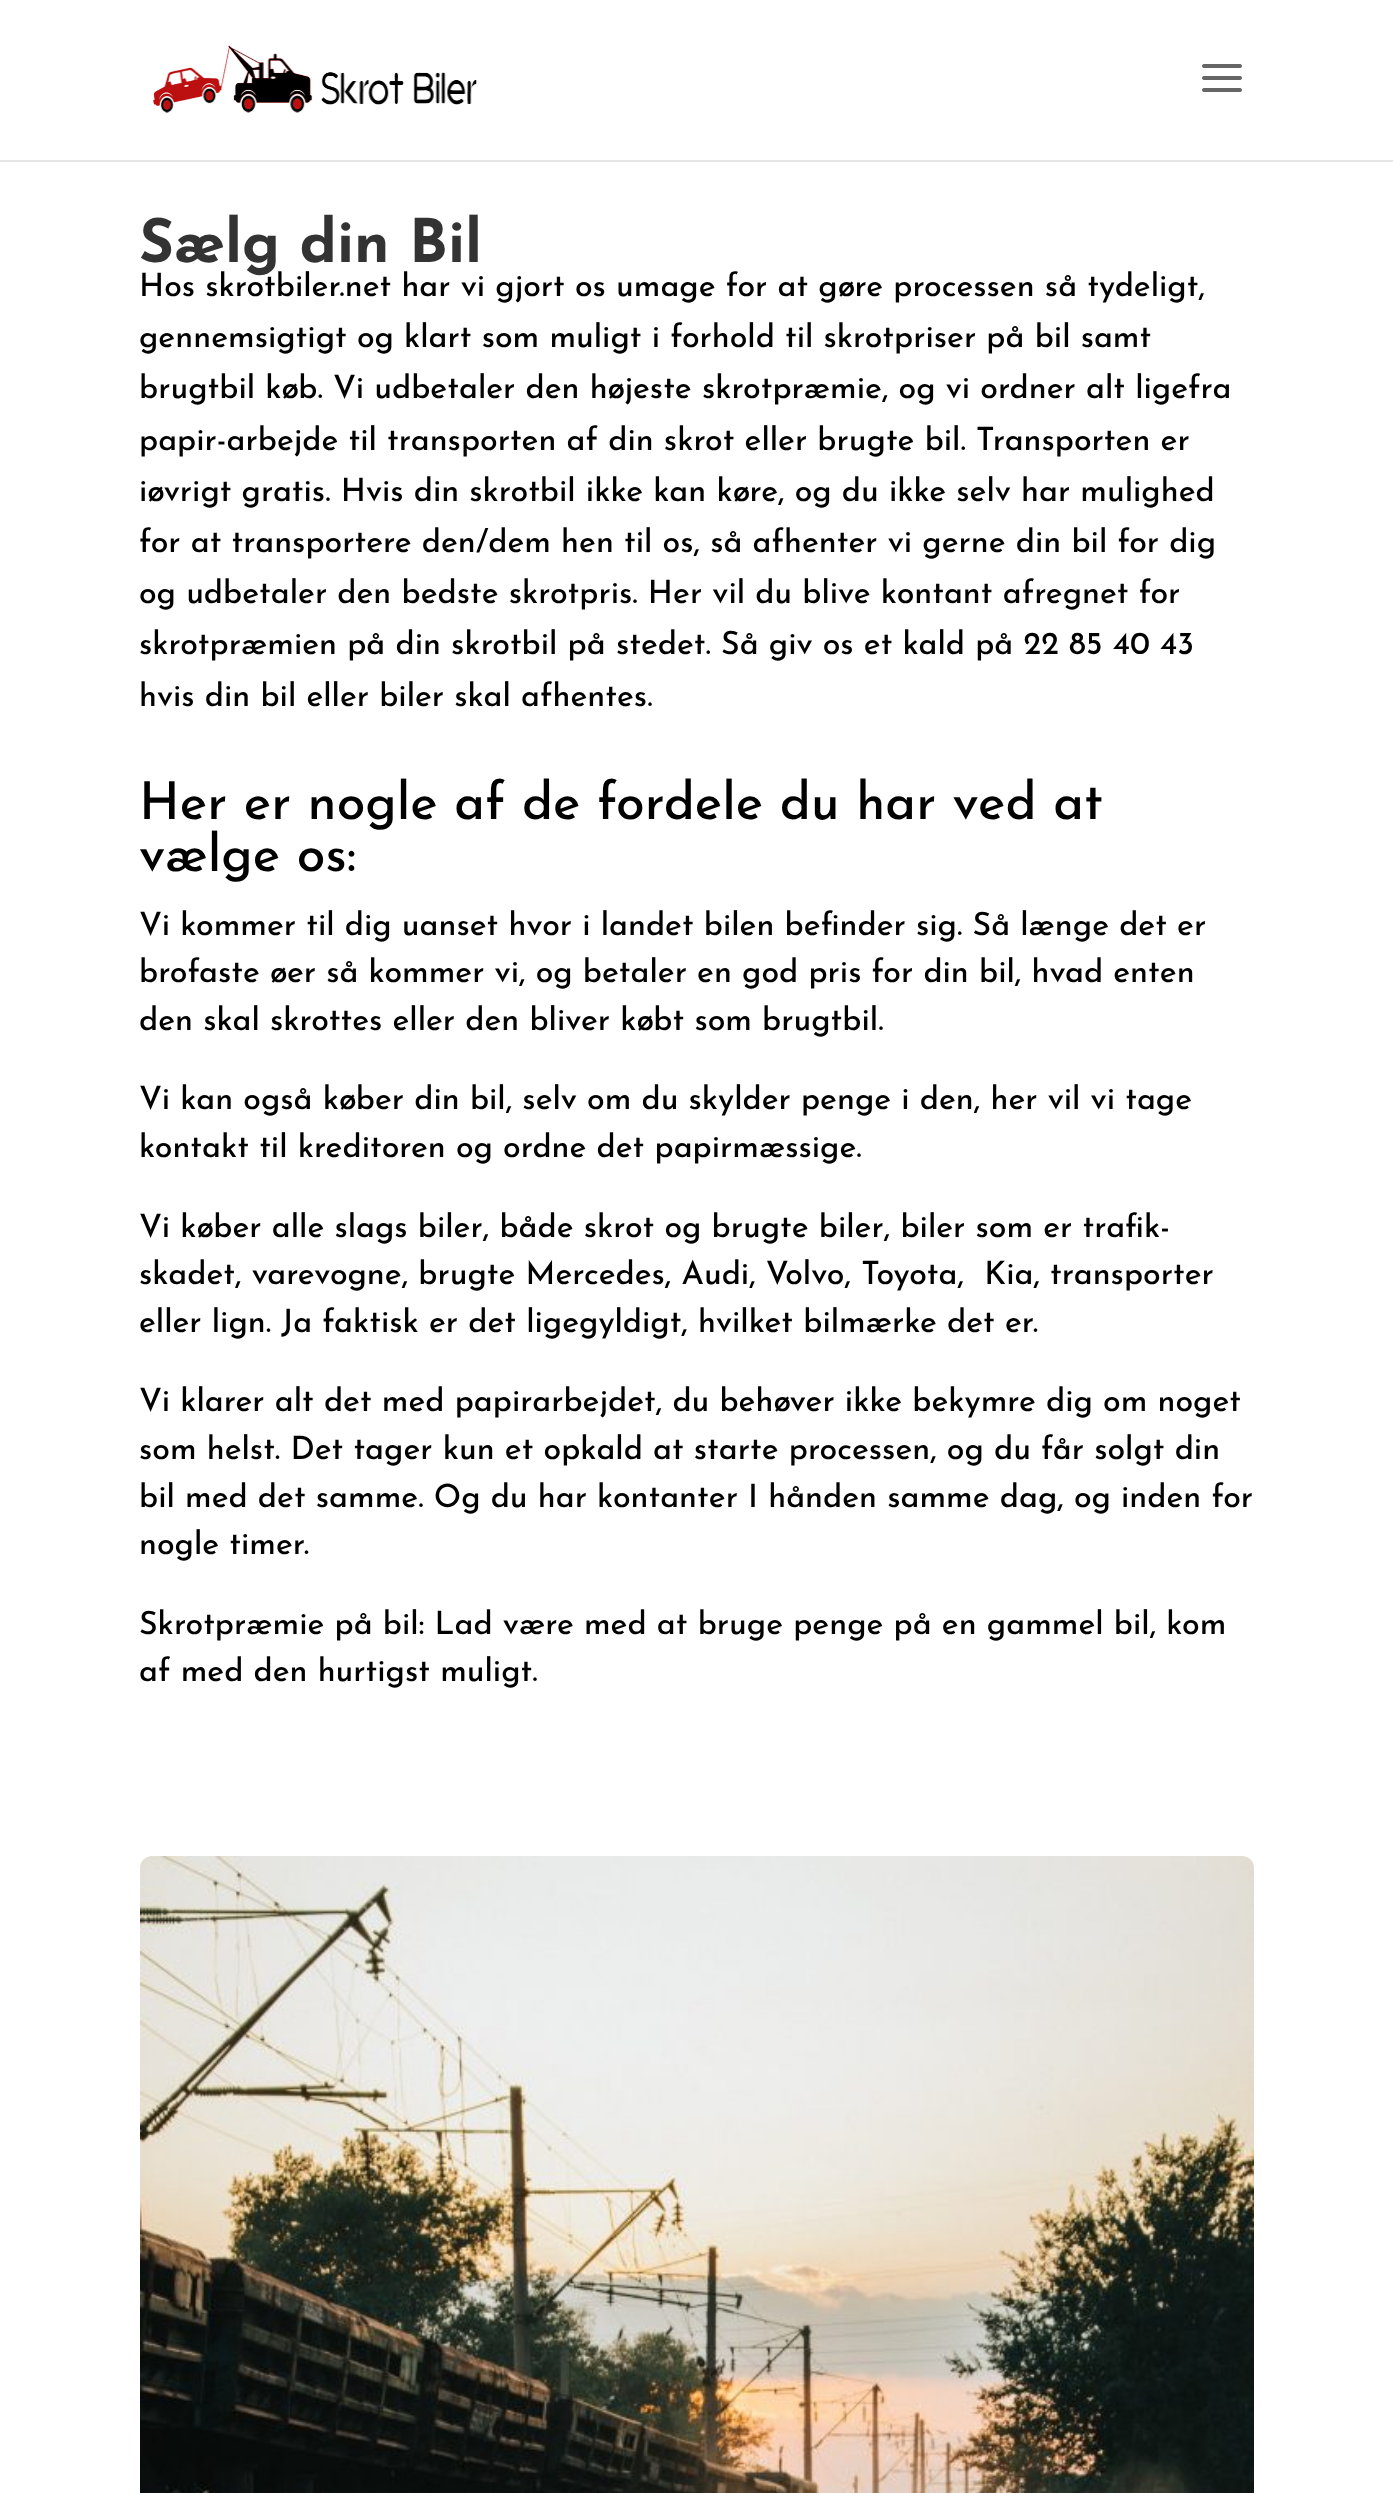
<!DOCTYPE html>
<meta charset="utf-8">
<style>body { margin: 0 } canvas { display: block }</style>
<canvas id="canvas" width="1393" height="2493"></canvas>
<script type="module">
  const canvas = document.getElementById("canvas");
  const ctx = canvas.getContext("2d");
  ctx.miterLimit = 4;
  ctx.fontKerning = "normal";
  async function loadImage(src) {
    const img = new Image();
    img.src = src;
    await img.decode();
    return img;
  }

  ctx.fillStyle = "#ffffff";
  ctx.fillRect(0, 0, 1393, 2493);
  ctx.fillStyle = "#e6e6e6";
  ctx.fillRect(0, 160, 1393, 2);
  ctx.drawImage(await loadImage("img1.png"), 153, 45, 324, 68);
  ctx.drawImage(await loadImage("img2.png"), 1202, 64, 40, 28);
  ctx.font = "bold 60px Josefin Sans";
  ctx.fillStyle = "#333333";
  ctx.fillText("Sælg din Bil", 139, 262);
  ctx.font = "500 32px Josefin Sans";
  ctx.fillStyle = "#000000";
  ctx.fillText("Hos skrotbiler.net har vi gjort os umage for at gøre processen så tydeligt,", 139, 296);
  ctx.fillText("gennemsigtigt og klart som muligt i forhold til skrotpriser på bil samt", 139, 347);
  ctx.fillText("brugtbil køb. Vi udbetaler den højeste skrotpræmie, og vi ordner alt ligefra", 139, 398);
  ctx.fillText("papir-arbejde til transporten af din skrot eller brugte bil. Transporten er", 139, 450);
  ctx.fillText("iøvrigt gratis. Hvis din skrotbil ikke kan køre, og du ikke selv har mulighed", 139, 501);
  ctx.fillText("for at transportere den/dem hen til os, så afhenter vi gerne din bil for dig", 139, 552);
  ctx.fillText("og udbetaler den bedste skrotpris. Her vil du blive kontant afregnet for", 139, 603);
  ctx.fillText("skrotpræmien på din skrotbil på stedet. Så giv os et kald på 22 85 40 43", 139, 654);
  ctx.fillText("hvis din bil eller biler skal afhentes.", 139, 706);
  ctx.font = "500 52px Josefin Sans";
  ctx.fillText("Her er nogle af de fordele du har ved at", 139, 819);
  ctx.fillText("vælge os:", 139, 871);
  ctx.font = "500 32px Josefin Sans";
  ctx.fillText("Vi kommer til dig uanset hvor i landet bilen befinder sig. Så længe det er", 139, 935);
  ctx.fillText("brofaste øer så kommer vi, og betaler en god pris for din bil, hvad enten", 139, 982);
  ctx.fillText("den skal skrottes eller den bliver købt som brugtbil.", 139, 1030);
  ctx.fillText("Vi kan også køber din bil, selv om du skylder penge i den, her vil vi tage", 139, 1109);
  ctx.fillText("kontakt til kreditoren og ordne det papirmæssige.", 139, 1157);
  ctx.fillText("Vi køber alle slags biler, både skrot og brugte biler, biler som er trafik-", 139, 1237);
  ctx.fillText("skadet, varevogne, brugte Mercedes, Audi, Volvo, Toyota,  Kia, transporter", 139, 1284);
  ctx.fillText("eller lign. Ja faktisk er det ligegyldigt, hvilket bilmærke det er.", 139, 1332);
  ctx.fillText("Vi klarer alt det med papirarbejdet, du behøver ikke bekymre dig om noget", 139, 1411);
  ctx.fillText("som helst. Det tager kun et opkald at starte processen, og du får solgt din", 139, 1459);
  ctx.fillText("bil med det samme. Og du har kontanter I hånden samme dag, og inden for", 139, 1507);
  ctx.fillText("nogle timer.", 139, 1554);
  ctx.fillText("Skrotpræmie på bil: Lad være med at bruge penge på en gammel bil, kom", 139, 1634);
  ctx.fillText("af med den hurtigst muligt.", 139, 1681);
  ctx.drawImage(await loadImage("img3.png"), 140, 1856, 1114, 637);
</script>
